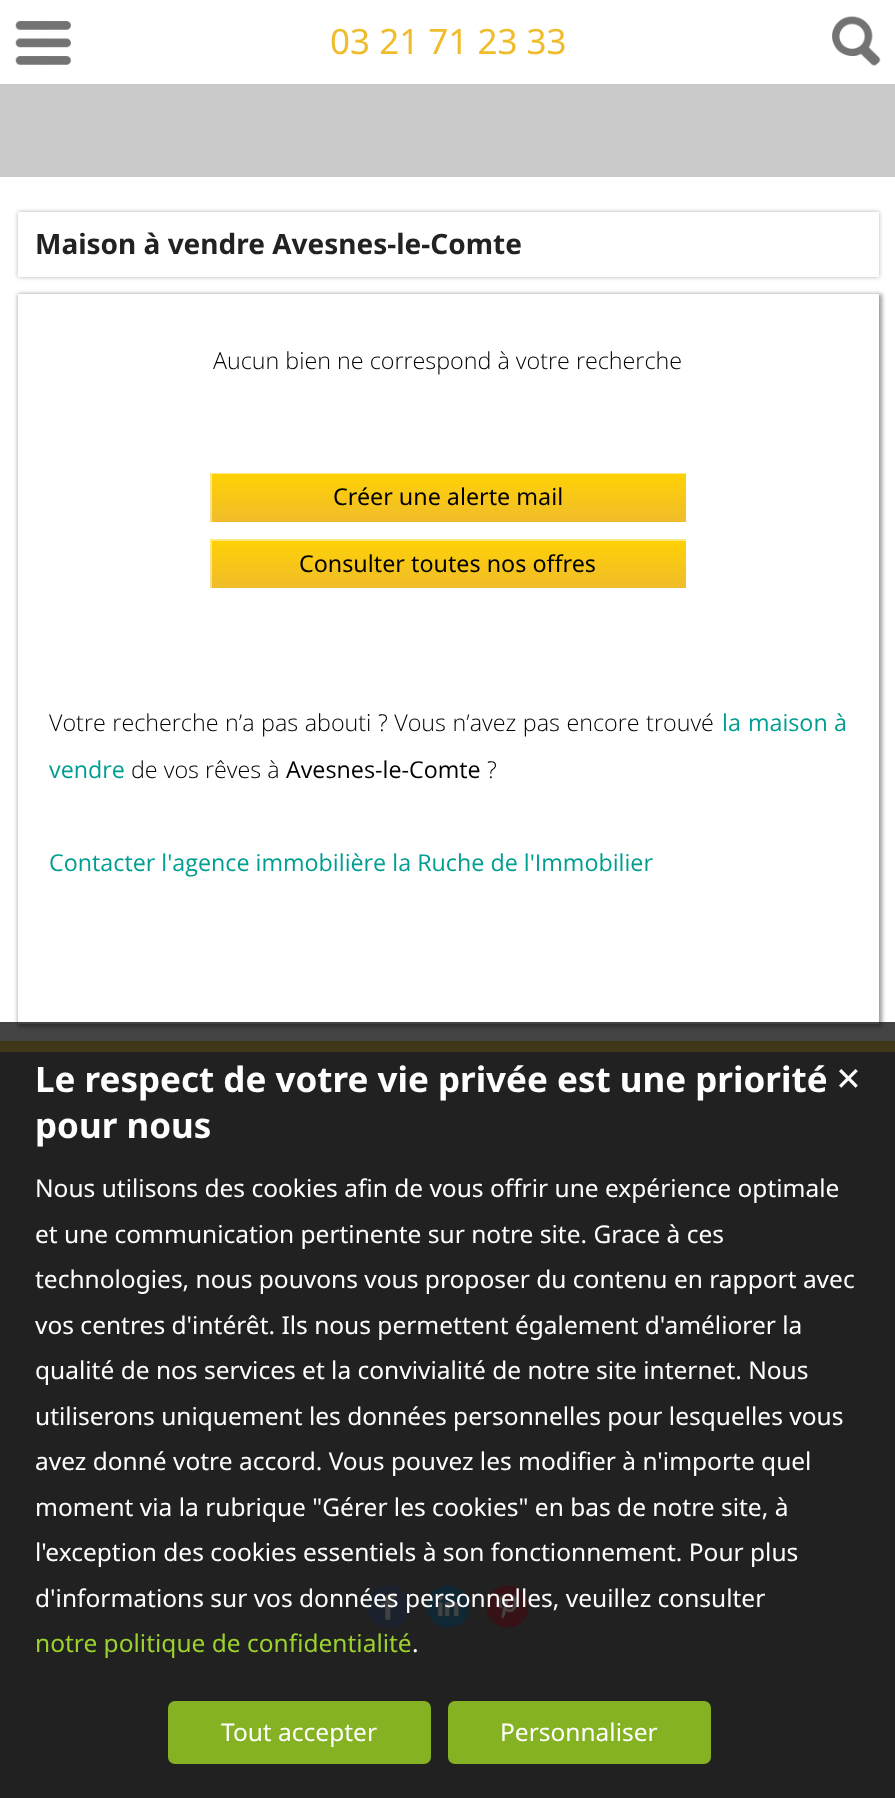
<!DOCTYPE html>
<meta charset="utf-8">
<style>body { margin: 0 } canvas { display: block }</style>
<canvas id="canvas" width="895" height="1798"></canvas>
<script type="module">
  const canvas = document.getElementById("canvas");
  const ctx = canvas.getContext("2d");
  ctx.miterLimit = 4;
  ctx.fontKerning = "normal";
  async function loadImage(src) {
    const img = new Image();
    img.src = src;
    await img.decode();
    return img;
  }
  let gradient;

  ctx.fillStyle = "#ffffff";
  ctx.fillRect(0, 0, 895, 1798);
  ctx.drawImage(await loadImage("img1.png"), 15, 21, 56, 44);
  ctx.font = "35px Noto Sans";
  ctx.fillStyle = "#f0bc2b";
  ctx.fillText("03 21 71 23 33", 330, 54);
  ctx.drawImage(await loadImage("img2.png"), 832, 16, 49, 50);
  ctx.fillStyle = "#cacaca";
  ctx.fillRect(0, 84, 895, 93);
  ctx.save();
  ctx.beginPath();
  ctx.moveTo(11, 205);
  ctx.lineTo(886, 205);
  ctx.lineTo(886, 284);
  ctx.lineTo(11, 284);
  ctx.closePath();
  ctx.moveTo(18, 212);
  ctx.lineTo(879, 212);
  ctx.lineTo(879, 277);
  ctx.lineTo(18, 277);
  ctx.closePath();
  ctx.clip("evenodd");
  ctx.fillStyle = "rgba(0, 0, 0, 0.3)";
  ctx.filter = "blur(2px)";
  ctx.beginPath();
  ctx.rect(18, 212, 861, 65);
  ctx.fill();
  ctx.filter = "none";
  ctx.restore();
  ctx.fillStyle = "rgba(255, 255, 255, 0.8)";
  ctx.fillRect(18, 212, 861, 65);
  ctx.font = "bold 28px Noto Sans";
  ctx.fillStyle = "#222222";
  ctx.fillText("Maison à vendre Avesnes-le-Comte", 35, 254);
  ctx.save();
  ctx.beginPath();
  ctx.moveTo(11, 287);
  ctx.lineTo(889, 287);
  ctx.lineTo(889, 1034);
  ctx.lineTo(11, 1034);
  ctx.closePath();
  ctx.moveTo(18, 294);
  ctx.lineTo(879, 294);
  ctx.lineTo(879, 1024);
  ctx.lineTo(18, 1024);
  ctx.closePath();
  ctx.clip("evenodd");
  ctx.fillStyle = "rgba(0, 0, 0, 0.4)";
  ctx.filter = "blur(2px)";
  ctx.beginPath();
  ctx.rect(18, 294, 864, 733);
  ctx.fill();
  ctx.filter = "none";
  ctx.restore();
  ctx.fillStyle = "rgba(255, 255, 255, 0.7)";
  ctx.fillRect(18, 294, 861, 730);
  ctx.font = "300 23.3px Open Sans";
  ctx.fillStyle = "#000000";
  ctx.fillText("Aucun bien ne correspond à votre recherche", 213, 369);
  gradient = ctx.createLinearGradient(448, 473, 448, 522);
  gradient.addColorStop(0, "#ffd204");
  gradient.addColorStop(1, "#f0bc2b");
  ctx.fillStyle = gradient;
  ctx.fillRect(210, 473, 476, 49);
  ctx.save();
  ctx.beginPath();
  ctx.rect(210, 473, 476, 49);
  ctx.clip();
  ctx.fillStyle = "rgba(255, 255, 255, 0.5)";
  ctx.beginPath();
  ctx.moveTo(37, 299);
  ctx.lineTo(859, 299);
  ctx.lineTo(859, 695);
  ctx.lineTo(37, 695);
  ctx.closePath();
  ctx.moveTo(212, 474);
  ctx.lineTo(688, 474);
  ctx.lineTo(688, 523);
  ctx.lineTo(212, 523);
  ctx.closePath();
  ctx.fill("evenodd");
  ctx.restore();
  ctx.font = "23.3px Noto Sans";
  ctx.fillStyle = "#000000";
  ctx.fillText("Créer une alerte mail", 333, 505);
  gradient = ctx.createLinearGradient(448, 539, 448, 588);
  gradient.addColorStop(0, "#ffd204");
  gradient.addColorStop(1, "#f0bc2b");
  ctx.fillStyle = gradient;
  ctx.fillRect(210, 539, 476, 49);
  ctx.save();
  ctx.beginPath();
  ctx.rect(210, 539, 476, 49);
  ctx.clip();
  ctx.fillStyle = "rgba(255, 255, 255, 0.5)";
  ctx.beginPath();
  ctx.moveTo(37, 366);
  ctx.lineTo(859, 366);
  ctx.lineTo(859, 761);
  ctx.lineTo(37, 761);
  ctx.closePath();
  ctx.moveTo(212, 541);
  ctx.lineTo(688, 541);
  ctx.lineTo(688, 590);
  ctx.lineTo(212, 590);
  ctx.closePath();
  ctx.fill("evenodd");
  ctx.restore();
  ctx.fillStyle = "#000000";
  ctx.fillText("Consulter toutes nos offres", 299, 572);
  ctx.wordSpacing = "0.5px";
  ctx.font = "300 23.3px Open Sans";
  ctx.fillText("Votre recherche n’a pas abouti ? Vous n’avez pas encore trouvé", 49, 731);
  ctx.wordSpacing = "1px";
  ctx.font = "23.3px Open Sans";
  ctx.fillStyle = "#009e91";
  ctx.fillText("la maison", 722, 731);
  ctx.wordSpacing = "0px";
  ctx.fillText("à", 834, 731);
  ctx.fillText("vendre", 49, 778);
  ctx.font = "300 23.3px Open Sans";
  ctx.fillStyle = "#000000";
  ctx.fillText("de vos rêves à", 131, 778);
  ctx.font = "23.3px Open Sans";
  ctx.fillText("Avesnes-le-Comte", 286, 778);
  ctx.font = "300 23.3px Open Sans";
  ctx.fillText("?", 487, 778);
  ctx.font = "23.3px Open Sans";
  ctx.fillStyle = "#009e91";
  ctx.fillText("Contacter l'agence immobilière la Ruche de l'Immobilier", 49, 871);
  ctx.fillStyle = "#f0bc2b";
  ctx.fillRect(0, 1041, 895, 11);
  ctx.fillStyle = "#575757";
  ctx.fillRect(0, 1052, 895, 746);
  ctx.drawImage(await loadImage("img3.png"), 367, 1585, 43, 43);
  ctx.drawImage(await loadImage("img4.png"), 427, 1585, 42, 43);
  ctx.drawImage(await loadImage("img5.png"), 486, 1585, 43, 43);
  ctx.fillStyle = "rgba(20, 20, 20, 0.8)";
  ctx.fillRect(0, 1022, 895, 776);
  ctx.font = "bold 35px Noto Sans";
  ctx.fillStyle = "#ffffff";
  ctx.fillText("Le respect de votre vie privée est une priorité", 35, 1092);
  ctx.fillText("pour nous", 35, 1138);
  ctx.font = "32px DejaVu Sans";
  ctx.fillText("✕", 835, 1090);
  ctx.font = "24.5px Noto Sans";
  ctx.fillText("Nous utilisons des cookies afin de vous offrir une expérience optimale", 35, 1197);
  ctx.fillText("et une communication pertinente sur notre site. Grace à ces", 35, 1243);
  ctx.fillText("technologies, nous pouvons vous proposer du contenu en rapport avec", 35, 1288);
  ctx.fillText("vos centres d'intérêt. Ils nous permettent également d'améliorer la", 35, 1334);
  ctx.fillText("qualité de nos services et la convivialité de notre site internet. Nous", 35, 1379);
  ctx.fillText("utiliserons uniquement les données personnelles pour lesquelles vous", 35, 1425);
  ctx.fillText("avez donné votre accord. Vous pouvez les modifier à n'importe quel", 35, 1470);
  ctx.fillText("moment via la rubrique \"Gérer les cookies\" en bas de notre site, à", 35, 1516);
  ctx.fillText("l'exception des cookies essentiels à son fonctionnement. Pour plus", 35, 1561);
  ctx.fillText("d'informations sur vos données personnelles, veuillez consulter", 35, 1607);
  ctx.fillStyle = "#9cd22e";
  ctx.fillText("notre politique de confidentialité", 35, 1652);
  ctx.fillStyle = "#ffffff";
  ctx.fillText(".", 412, 1652);
  ctx.fillStyle = "#84b222";
  ctx.beginPath();
  ctx.roundRect(168, 1701, 263, 63, 7);
  ctx.fill();
  ctx.fillStyle = "#ffffff";
  ctx.fillText("Tout accepter", 221, 1741);
  ctx.fillStyle = "#84b222";
  ctx.beginPath();
  ctx.roundRect(448, 1701, 263, 63, 7);
  ctx.fill();
  ctx.fillStyle = "#ffffff";
  ctx.fillText("Personnaliser", 500, 1741);
</script>
